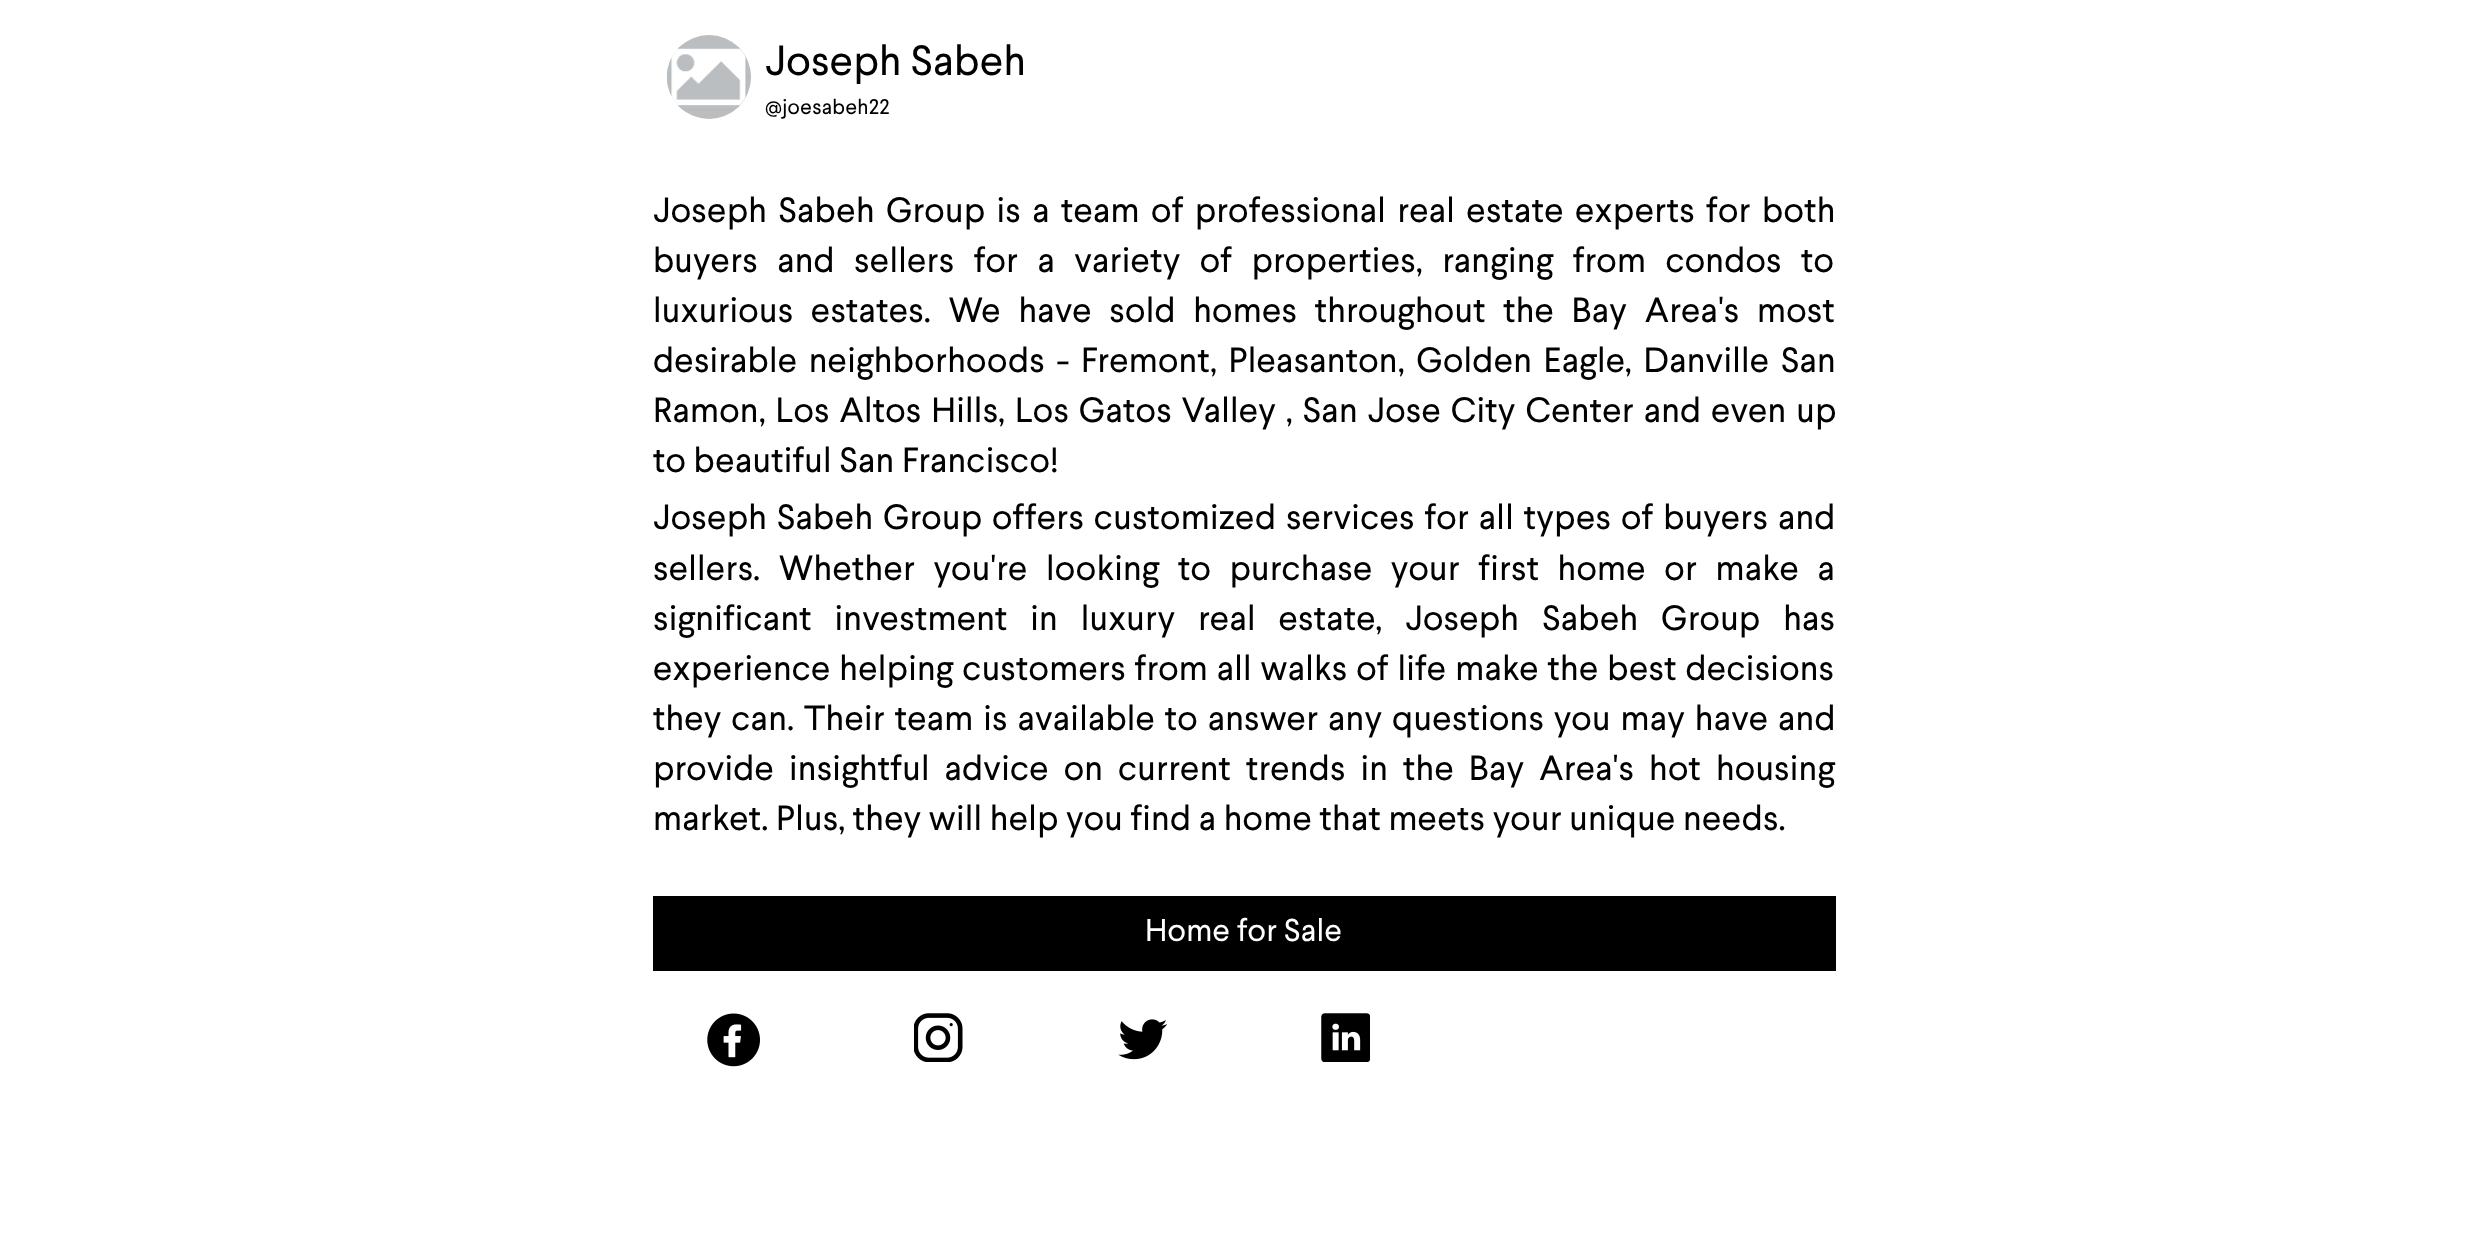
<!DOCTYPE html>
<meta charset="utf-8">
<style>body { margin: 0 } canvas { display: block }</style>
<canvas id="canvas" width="2488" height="1234"></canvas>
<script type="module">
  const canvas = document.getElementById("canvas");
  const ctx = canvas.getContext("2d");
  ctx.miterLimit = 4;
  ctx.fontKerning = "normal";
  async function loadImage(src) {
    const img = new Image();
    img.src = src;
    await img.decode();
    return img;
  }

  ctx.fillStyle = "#ffffff";
  ctx.fillRect(0, 0, 2488, 1234);
  ctx.fillStyle = "#bdbdbd";
  ctx.beginPath();
  ctx.arc(709, 77, 42, 0, Math.PI * 2);
  ctx.fill();
  ctx.drawImage(await loadImage("img1.png"), 666, 44, 85, 67);
  ctx.letterSpacing = "0.25px";
  ctx.font = "42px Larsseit";
  ctx.fillStyle = "#000000";
  ctx.fillText("Joseph Sabeh", 765, 75);
  ctx.font = "21px Larsseit";
  ctx.fillText("@joesabeh22", 765, 114);
  ctx.wordSpacing = "3.75px";
  ctx.font = "35px Larsseit";
  ctx.fillText("Joseph Sabeh Group is a team of professional real estate experts for both", 653, 222);
  ctx.wordSpacing = "11.75px";
  ctx.fillText("buyers and sellers for a variety of properties, ranging from condos to", 653, 272);
  ctx.wordSpacing = "10px";
  ctx.fillText("luxurious estates. We have sold homes throughout the Bay Area's most", 653, 322);
  ctx.wordSpacing = "4px";
  ctx.fillText("desirable neighborhoods - Fremont, Pleasanton, Golden Eagle, Danville San", 653, 372);
  ctx.wordSpacing = "2.25px";
  ctx.fillText("Ramon, Los Altos Hills, Los Gatos Valley , San Jose City Center and even up", 653, 422);
  ctx.wordSpacing = "0px";
  ctx.fillText("to beautiful San Francisco!", 653, 472);
  ctx.wordSpacing = "2.25px";
  ctx.fillText("Joseph Sabeh Group offers customized services for all types of buyers and", 653, 529);
  ctx.wordSpacing = "10.9px";
  ctx.fillText("sellers. Whether you're looking to purchase your first home or make a", 653, 580);
  ctx.wordSpacing = "15.25px";
  ctx.fillText("significant investment in luxury real estate, Joseph Sabeh Group has", 653, 630);
  ctx.wordSpacing = "1.25px";
  ctx.fillText("experience helping customers from all walks of life make the best decisions", 653, 680);
  ctx.wordSpacing = "2.25px";
  ctx.fillText("they can. Their team is available to answer any questions you may have and", 653, 730);
  ctx.wordSpacing = "7.4px";
  ctx.fillText("provide insightful advice on current trends in the Bay Area's hot housing", 653, 780);
  ctx.wordSpacing = "0px";
  ctx.fillText("market. Plus, they will help you find a home that meets your unique needs.", 653, 830);
  ctx.fillRect(653, 896, 1183, 75);
  ctx.font = "31.5px Larsseit";
  ctx.fillStyle = "#ffffff";
  ctx.fillText("Home for Sale", 1145, 941);
  ctx.drawImage(await loadImage("img2.png"), 707, 1013, 53, 54);
  ctx.drawImage(await loadImage("img3.png"), 914, 1013, 49, 49);
  ctx.drawImage(await loadImage("img4.png"), 1118, 1019, 49, 41);
  ctx.drawImage(await loadImage("img5.png"), 1321, 1013, 49, 49);
</script>
